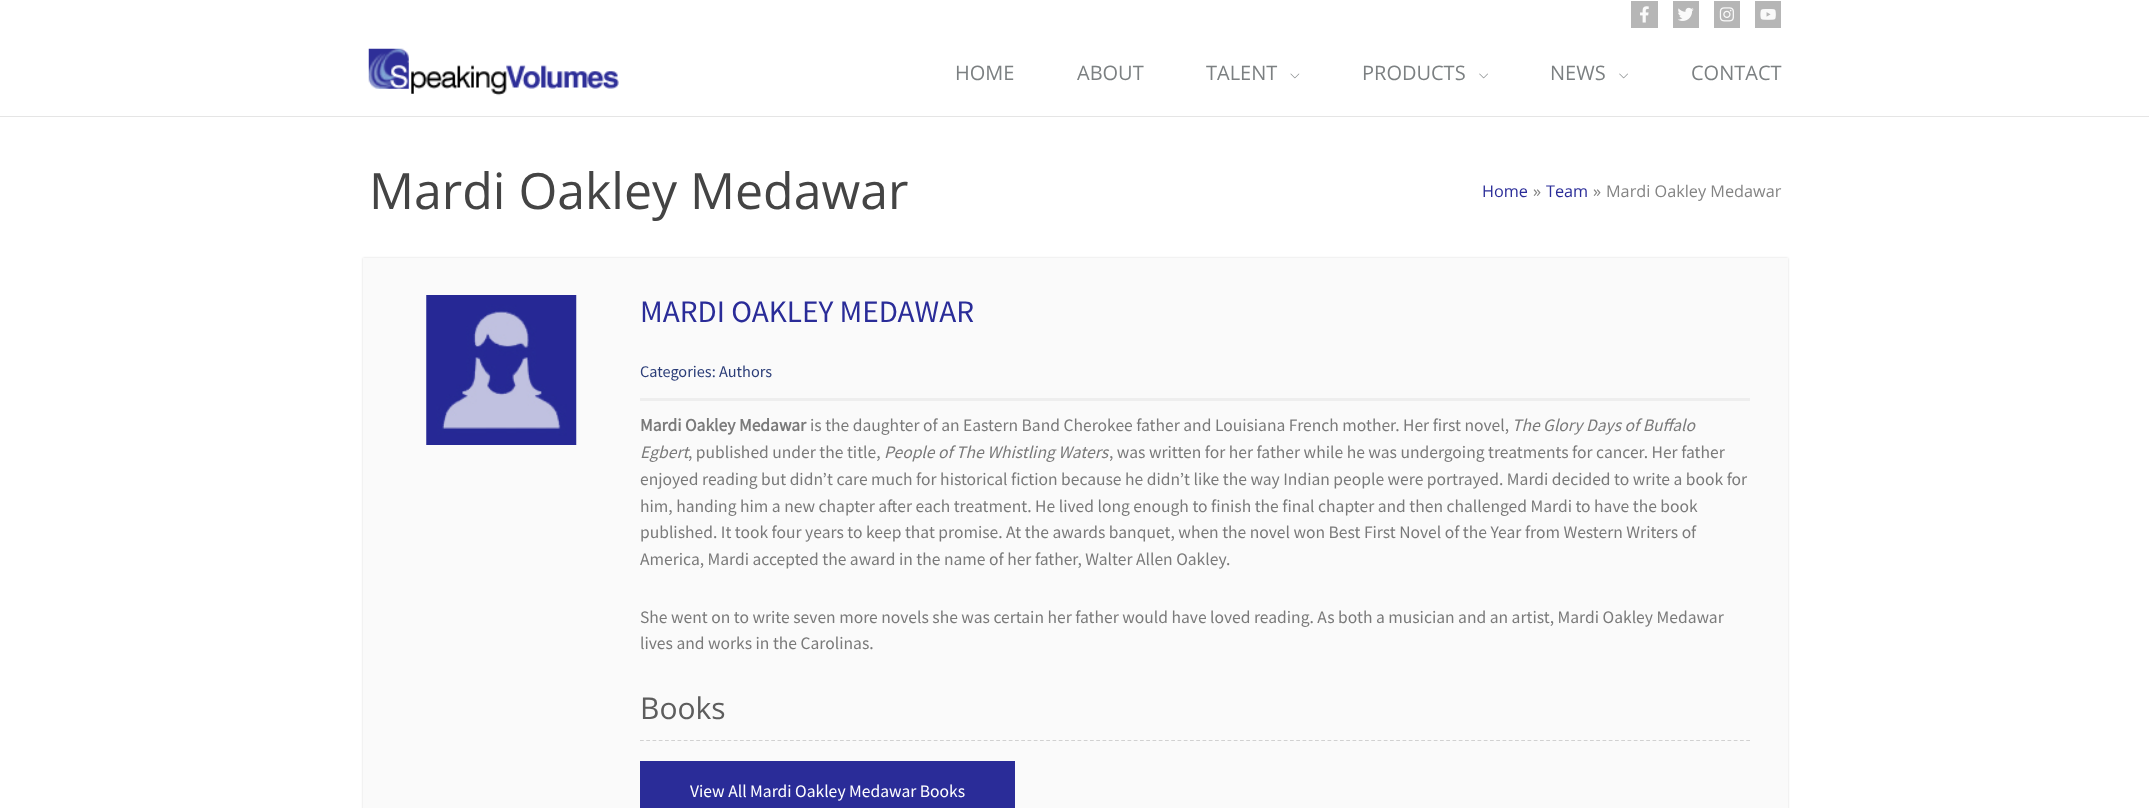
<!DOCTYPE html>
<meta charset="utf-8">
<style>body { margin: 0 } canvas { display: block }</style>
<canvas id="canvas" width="2149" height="808"></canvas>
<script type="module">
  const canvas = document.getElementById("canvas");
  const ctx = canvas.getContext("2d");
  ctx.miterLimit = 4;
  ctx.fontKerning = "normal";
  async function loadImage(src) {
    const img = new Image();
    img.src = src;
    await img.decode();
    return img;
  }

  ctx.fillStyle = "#ffffff";
  ctx.fillRect(0, 0, 2149, 808);
  ctx.fillStyle = "#b6b6b6";
  ctx.fillRect(1631, 1, 27, 27);
  ctx.drawImage(await loadImage("img1.png"), 1640, 6, 9, 17);
  ctx.fillRect(1673, 1, 26, 27);
  ctx.drawImage(await loadImage("img2.png"), 1678, 7, 16, 14);
  ctx.fillRect(1714, 1, 26, 27);
  ctx.drawImage(await loadImage("img3.png"), 1719, 7, 15, 15);
  ctx.fillRect(1755, 1, 26, 27);
  ctx.drawImage(await loadImage("img4.png"), 1760, 9, 16, 11);
  ctx.fillStyle = "#e5e5e5";
  ctx.fillRect(0, 116, 2149, 1);
  ctx.drawImage(await loadImage("img5.png"), 368, 48, 251, 48);
  ctx.font = "20px Open Sans";
  ctx.fillStyle = "#7c8082";
  ctx.fillText("HOME", 955, 80);
  ctx.fillText("ABOUT", 1077, 80);
  ctx.fillText("TALENT", 1206, 80);
  ctx.drawImage(await loadImage("img6.png"), 1290, 73, 10, 6);
  ctx.fillText("PRODUCTS", 1362, 80);
  ctx.drawImage(await loadImage("img7.png"), 1479, 73, 9, 6);
  ctx.fillText("NEWS", 1550, 80);
  ctx.drawImage(await loadImage("img7.png"), 1619, 73, 9, 6);
  ctx.fillText("CONTACT", 1691, 80);
  ctx.font = "50px Open Sans";
  ctx.fillStyle = "#444444";
  ctx.fillText("Mardi Oakley Medawar", 369, 209);
  ctx.font = "16.25px Open Sans";
  ctx.fillStyle = "#2a2c98";
  ctx.fillText("Home", 1482, 197);
  ctx.fillStyle = "#848484";
  ctx.fillText("»", 1533, 197);
  ctx.fillStyle = "#2a2c98";
  ctx.fillText("Team", 1546, 197);
  ctx.fillStyle = "#848484";
  ctx.fillText("»", 1593, 197);
  ctx.fillText("Mardi Oakley Medawar", 1606, 197);
  ctx.fillStyle = "rgba(0, 0, 0, 0.15)";
  ctx.filter = "blur(1px)";
  ctx.beginPath();
  ctx.rect(363, 258, 1425, 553);
  ctx.fill();
  ctx.filter = "none";
  ctx.fillStyle = "#fafafa";
  ctx.fillRect(363, 258, 1425, 550);
  ctx.drawImage(await loadImage("img8.png"), 426, 295, 151, 150);
  ctx.fillStyle = "#eeeeee";
  ctx.fillRect(640, 398, 1110, 3);
  ctx.font = "31.25px Source Sans Pro";
  ctx.fillStyle = "#2a2c98";
  ctx.fillText("MARDI OAKLEY MEDAWAR", 640, 322);
  ctx.font = "16.25px Source Sans Pro";
  ctx.fillStyle = "#2b3d78";
  ctx.fillText("Categories: Authors", 640, 377);
  ctx.font = "bold 17.5px Source Sans Pro";
  ctx.fillStyle = "#7a7a7a";
  ctx.fillText("Mardi Oakley Medawar", 640, 431);
  ctx.font = "17.5px Source Sans Pro";
  ctx.fillText("is the daughter of an Eastern Band Cherokee father and Louisiana French mother. Her first novel,", 810, 431);
  ctx.font = "italic 17.5px Source Sans Pro";
  ctx.fillText("The Glory Days of Buffalo", 1512, 431);
  ctx.fillText("Egbert", 640, 458);
  ctx.font = "17.5px Source Sans Pro";
  ctx.fillText(", published under the title,", 688, 458);
  ctx.font = "italic 17.5px Source Sans Pro";
  ctx.fillText("People of The Whistling Waters", 884, 458);
  ctx.font = "17.5px Source Sans Pro";
  ctx.fillText(", was written for her father while he was undergoing treatments for cancer. Her father", 1109, 458);
  ctx.fillText("enjoyed reading but didn’t care much for historical fiction because he didn’t like the way Indian people were portrayed. Mardi decided to write a book for", 640, 485);
  ctx.fillText("him, handing him a new chapter after each treatment. He lived long enough to finish the final chapter and then challenged Mardi to have the book", 640, 512);
  ctx.fillText("published. It took four years to keep that promise. At the awards banquet, when the novel won Best First Novel of the Year from Western Writers of", 640, 538);
  ctx.fillText("America, Mardi accepted the award in the name of her father, Walter Allen Oakley.", 640, 565);
  ctx.fillText("She went on to write seven more novels she was certain her father would have loved reading. As both a musician and an artist, Mardi Oakley Medawar", 640, 623);
  ctx.fillText("lives and works in the Carolinas.", 640, 649);
  ctx.beginPath();
  ctx.moveTo(640, 740.5);
  ctx.lineTo(1750, 740.5);
  ctx.strokeStyle = "#d1d1d1";
  ctx.lineWidth = 1.2;
  ctx.setLineDash([3.75, 2.5]);
  ctx.stroke();
  ctx.font = "30px Open Sans";
  ctx.fillStyle = "#5d5d5d";
  ctx.fillText("Books", 640, 719);
  ctx.fillStyle = "#2a2c98";
  ctx.fillRect(640, 761, 375, 47);
  ctx.font = "17.5px Source Sans Pro";
  ctx.fillStyle = "#ffffff";
  ctx.fillText("View All Mardi Oakley Medawar Books", 690, 797);
</script>
